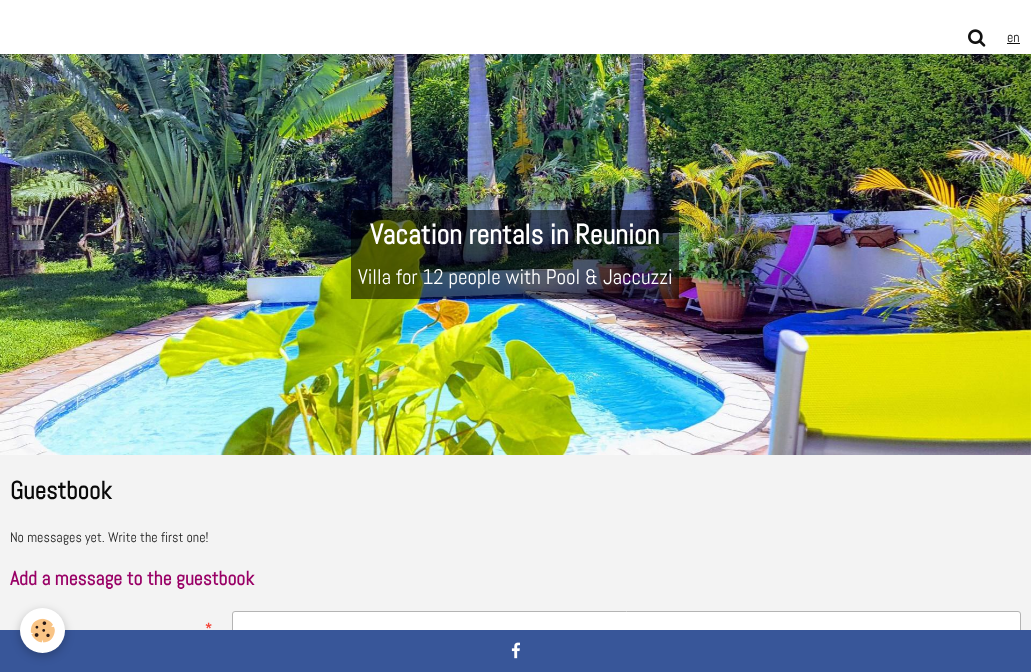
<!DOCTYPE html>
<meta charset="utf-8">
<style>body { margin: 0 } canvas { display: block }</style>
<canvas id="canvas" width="1031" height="672"></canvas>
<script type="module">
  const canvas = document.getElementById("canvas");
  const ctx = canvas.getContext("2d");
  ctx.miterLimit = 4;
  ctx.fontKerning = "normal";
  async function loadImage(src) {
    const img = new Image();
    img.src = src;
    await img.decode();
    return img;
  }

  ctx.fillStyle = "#f3f3f3";
  ctx.fillRect(0, 0, 1031, 672);
  ctx.fillStyle = "#ffffff";
  ctx.fillRect(0, 0, 1031, 54);
  ctx.drawImage(await loadImage("img1.png"), 968, 29, 18, 18);
  ctx.font = "14px Abel";
  ctx.fillStyle = "#111111";
  ctx.fillText("en", 1007, 42);
  ctx.fillRect(1007, 43, 13, 1);
  ctx.drawImage(await loadImage("img2.png"), 0, 54, 1031, 401);
  ctx.fillStyle = "rgba(0, 0, 0, 0.55)";
  ctx.fillRect(351, 210, 328, 89);
  ctx.font = "bold 28px Abel";
  ctx.fillStyle = "#ffffff";
  ctx.fillText("Vacation rentals in Reunion", 370, 244);
  ctx.font = "21px Abel";
  ctx.fillText("Villa for 12 people with Pool & Jaccuzzi", 358, 284);
  ctx.font = "bold 25px Abel";
  ctx.fillStyle = "#090909";
  ctx.fillText("Guestbook", 10, 499);
  ctx.font = "14px Abel";
  ctx.fillStyle = "#1a1a1a";
  ctx.fillText("No messages yet. Write the first one!", 10, 542);
  ctx.font = "bold 19.6px Abel";
  ctx.fillStyle = "#990066";
  ctx.fillText("Add a message to the guestbook", 10, 585);
  ctx.font = "bold 14px Abel";
  ctx.fillStyle = "#f44336";
  ctx.fillText("*", 205, 633);
  ctx.fillStyle = "#ffffff";
  ctx.beginPath();
  ctx.roundRect(232.5, 611.5, 788, 33, 2.5);
  ctx.fill();
  ctx.strokeStyle = "#b4b4b4";
  ctx.stroke();
  ctx.fillStyle = "#385699";
  ctx.fillRect(0, 630, 1031, 42);
  ctx.fillStyle = "rgba(0, 0, 0, 0.24)";
  ctx.filter = "blur(5px)";
  ctx.beginPath();
  ctx.roundRect(20, 611, 45, 45, 22.5);
  ctx.fill();
  ctx.filter = "none";
  ctx.fillStyle = "#ffffff";
  ctx.beginPath();
  ctx.arc(42.5, 630.5, 22.5, 0, Math.PI * 2);
  ctx.fill();
  ctx.drawImage(await loadImage("img3.png"), 30, 618, 25, 25);
  ctx.drawImage(await loadImage("img4.png"), 511, 642, 9, 17);
</script>
